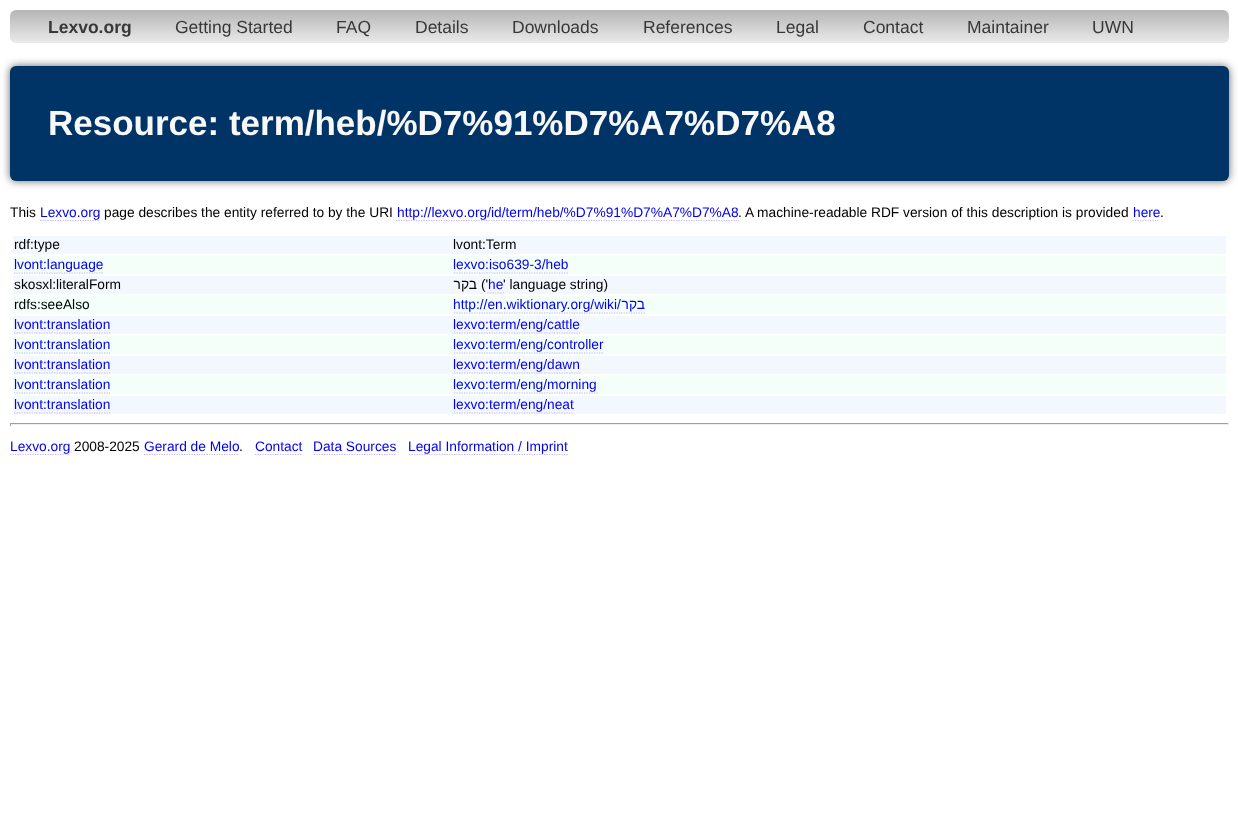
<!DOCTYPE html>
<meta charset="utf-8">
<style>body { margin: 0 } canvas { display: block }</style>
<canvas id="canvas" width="1238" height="835"></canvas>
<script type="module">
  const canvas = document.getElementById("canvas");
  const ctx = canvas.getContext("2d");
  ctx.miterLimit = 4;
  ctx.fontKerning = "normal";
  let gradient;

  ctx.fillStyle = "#ffffff";
  ctx.fillRect(0, 0, 1238, 835);
  gradient = ctx.createLinearGradient(619, 10, 619, 43);
  gradient.addColorStop(0, "#b5b5b5");
  gradient.addColorStop(1, "#eaeaea");
  ctx.fillStyle = gradient;
  ctx.beginPath();
  ctx.roundRect(10, 10, 1219, 33, 6);
  ctx.fill();
  ctx.font = "bold 17.5px Liberation Sans";
  ctx.fillStyle = "#383838";
  ctx.fillText("Lexvo.org", 48, 33);
  ctx.font = "17.5px Liberation Sans";
  ctx.fillText("Getting Started", 175, 33);
  ctx.fillText("FAQ", 336, 33);
  ctx.fillText("Details", 415, 33);
  ctx.fillText("Downloads", 512, 33);
  ctx.fillText("References", 643, 33);
  ctx.fillText("Legal", 776, 33);
  ctx.fillText("Contact", 863, 33);
  ctx.fillText("Maintainer", 967, 33);
  ctx.fillText("UWN", 1092, 33);
  ctx.fillStyle = "rgba(0, 0, 0, 0.6)";
  ctx.filter = "blur(4px)";
  ctx.beginPath();
  ctx.roundRect(10, 66, 1219, 115, 6);
  ctx.fill();
  ctx.filter = "none";
  ctx.fillStyle = "#003366";
  ctx.beginPath();
  ctx.roundRect(10, 66, 1219, 115, 6);
  ctx.fill();
  ctx.font = "bold 35px Liberation Sans";
  ctx.fillStyle = "#f8f8f8";
  ctx.fillText("Resource: term/heb/%D7%91%D7%A7%D7%A8", 48, 135);
  ctx.font = "13.75px Liberation Sans";
  ctx.fillStyle = "#000000";
  ctx.fillText("This", 10, 217);
  ctx.beginPath();
  ctx.moveTo(40, 220.5);
  ctx.lineTo(100, 220.5);
  ctx.strokeStyle = "#bfb6ff";
  ctx.lineWidth = 1.2;
  ctx.setLineDash([1.25, 1.25]);
  ctx.stroke();
  ctx.fillStyle = "#0000ee";
  ctx.fillText("Lexvo.org", 40, 217);
  ctx.fillStyle = "#000000";
  ctx.fillText("page describes the entity referred to by the URI", 104, 217);
  ctx.beginPath();
  ctx.moveTo(396, 220.5);
  ctx.lineTo(739, 220.5);
  ctx.stroke();
  ctx.fillStyle = "#0000ee";
  ctx.fillText("http://lexvo.org/id/term/heb/%D7%91%D7%A7%D7%A8", 397, 217);
  ctx.fillStyle = "#000000";
  ctx.fillText(". A machine-readable RDF version of this description is provided", 738, 217);
  ctx.fillStyle = "#0000ee";
  ctx.fillText("here", 1133, 217);
  ctx.beginPath();
  ctx.moveTo(1132.5, 220.5);
  ctx.lineTo(1160, 220.5);
  ctx.stroke();
  ctx.fillStyle = "#000000";
  ctx.fillText(".", 1160, 217);
  ctx.fillStyle = "#f3f8ff";
  ctx.fillRect(13, 236, 1213, 18);
  ctx.fillStyle = "#000000";
  ctx.fillText("rdf:type", 14, 249);
  ctx.fillText("lvont:Term", 453, 249);
  ctx.fillStyle = "#f3fff8";
  ctx.fillRect(13, 256, 1213, 18);
  ctx.fillStyle = "#0000ee";
  ctx.fillText("lvont:language", 14, 269);
  ctx.beginPath();
  ctx.moveTo(14, 273);
  ctx.lineTo(104, 273);
  ctx.stroke();
  ctx.fillText("lexvo:iso639-3/heb", 453, 269);
  ctx.beginPath();
  ctx.moveTo(454, 273);
  ctx.lineTo(569, 273);
  ctx.stroke();
  ctx.fillStyle = "#f3f8ff";
  ctx.fillRect(13, 276, 1213, 18);
  ctx.fillStyle = "#000000";
  ctx.fillText("skosxl:literalForm", 14, 289);
  ctx.direction = "rtl";
  ctx.fillText("בקר", 477, 289);
  ctx.direction = "ltr";
  ctx.fillText("('", 481, 289);
  ctx.fillStyle = "#0000ee";
  ctx.fillText("he", 488, 289);
  ctx.beginPath();
  ctx.moveTo(487.5, 293);
  ctx.lineTo(504, 293);
  ctx.stroke();
  ctx.fillStyle = "#000000";
  ctx.fillText("' language string)", 503, 289);
  ctx.fillStyle = "#f3fff8";
  ctx.fillRect(13, 296, 1213, 18);
  ctx.fillStyle = "#000000";
  ctx.fillText("rdfs:seeAlso", 14, 309);
  ctx.fillStyle = "#0000ee";
  ctx.fillText("http://en.wiktionary.org/wiki/", 453, 309);
  ctx.direction = "rtl";
  ctx.fillText("בקר", 645, 309);
  ctx.beginPath();
  ctx.moveTo(454, 313);
  ctx.lineTo(621, 313);
  ctx.stroke();
  ctx.beginPath();
  ctx.moveTo(621, 313);
  ctx.lineTo(645, 313);
  ctx.stroke();
  ctx.fillStyle = "#f3f8ff";
  ctx.fillRect(13, 316, 1213, 18);
  ctx.direction = "ltr";
  ctx.fillStyle = "#0000ee";
  ctx.fillText("lvont:translation", 14, 329);
  ctx.beginPath();
  ctx.moveTo(14, 333);
  ctx.lineTo(110, 333);
  ctx.stroke();
  ctx.fillText("lexvo:term/eng/cattle", 453, 329);
  ctx.beginPath();
  ctx.moveTo(454, 333);
  ctx.lineTo(580, 333);
  ctx.stroke();
  ctx.fillStyle = "#f3fff8";
  ctx.fillRect(13, 336, 1213, 18);
  ctx.fillStyle = "#0000ee";
  ctx.fillText("lvont:translation", 14, 349);
  ctx.beginPath();
  ctx.moveTo(14, 353);
  ctx.lineTo(110, 353);
  ctx.stroke();
  ctx.fillText("lexvo:term/eng/controller", 453, 349);
  ctx.beginPath();
  ctx.moveTo(454, 353);
  ctx.lineTo(604, 353);
  ctx.stroke();
  ctx.fillStyle = "#f3f8ff";
  ctx.fillRect(13, 356, 1213, 18);
  ctx.fillStyle = "#0000ee";
  ctx.fillText("lvont:translation", 14, 369);
  ctx.beginPath();
  ctx.moveTo(14, 373);
  ctx.lineTo(110, 373);
  ctx.stroke();
  ctx.fillText("lexvo:term/eng/dawn", 453, 369);
  ctx.beginPath();
  ctx.moveTo(454, 373);
  ctx.lineTo(580, 373);
  ctx.stroke();
  ctx.fillStyle = "#f3fff8";
  ctx.fillRect(13, 376, 1213, 18);
  ctx.fillStyle = "#0000ee";
  ctx.fillText("lvont:translation", 14, 389);
  ctx.beginPath();
  ctx.moveTo(14, 393);
  ctx.lineTo(110, 393);
  ctx.stroke();
  ctx.fillText("lexvo:term/eng/morning", 453, 389);
  ctx.beginPath();
  ctx.moveTo(454, 393);
  ctx.lineTo(597.5, 393);
  ctx.stroke();
  ctx.fillStyle = "#f3f8ff";
  ctx.fillRect(13, 396, 1213, 18);
  ctx.fillStyle = "#0000ee";
  ctx.fillText("lvont:translation", 14, 409);
  ctx.beginPath();
  ctx.moveTo(14, 413);
  ctx.lineTo(110, 413);
  ctx.stroke();
  ctx.fillText("lexvo:term/eng/neat", 453, 409);
  ctx.beginPath();
  ctx.moveTo(454, 413);
  ctx.lineTo(574, 413);
  ctx.stroke();
  ctx.fillStyle = "#9f9f9f";
  ctx.fillRect(10, 423, 1219, 1);
  ctx.fillStyle = "#eeeeee";
  ctx.fillRect(1228, 423, 1, 3);
  ctx.fillRect(10, 424, 1219, 1);
  ctx.fillStyle = "#9f9f9f";
  ctx.fillRect(10, 423, 1, 3);
  ctx.beginPath();
  ctx.moveTo(10, 454.5);
  ctx.lineTo(70, 454.5);
  ctx.stroke();
  ctx.fillStyle = "#0000ee";
  ctx.fillText("Lexvo.org", 10, 451);
  ctx.fillStyle = "#000000";
  ctx.fillText("2008-2025", 74, 451);
  ctx.fillStyle = "#0000ee";
  ctx.fillText("Gerard de Melo", 144, 451);
  ctx.beginPath();
  ctx.moveTo(144, 454.5);
  ctx.lineTo(239, 454.5);
  ctx.stroke();
  ctx.fillStyle = "#000000";
  ctx.fillText(".", 239, 451);
  ctx.fillStyle = "#0000ee";
  ctx.fillText("Contact", 255, 451);
  ctx.beginPath();
  ctx.moveTo(255, 454.5);
  ctx.lineTo(302.5, 454.5);
  ctx.stroke();
  ctx.fillText("Data Sources", 313, 451);
  ctx.beginPath();
  ctx.moveTo(314, 454.5);
  ctx.lineTo(396, 454.5);
  ctx.stroke();
  ctx.beginPath();
  ctx.moveTo(409, 454.5);
  ctx.lineTo(567.5, 454.5);
  ctx.stroke();
  ctx.fillText("Legal Information / Imprint", 408, 451);
</script>
